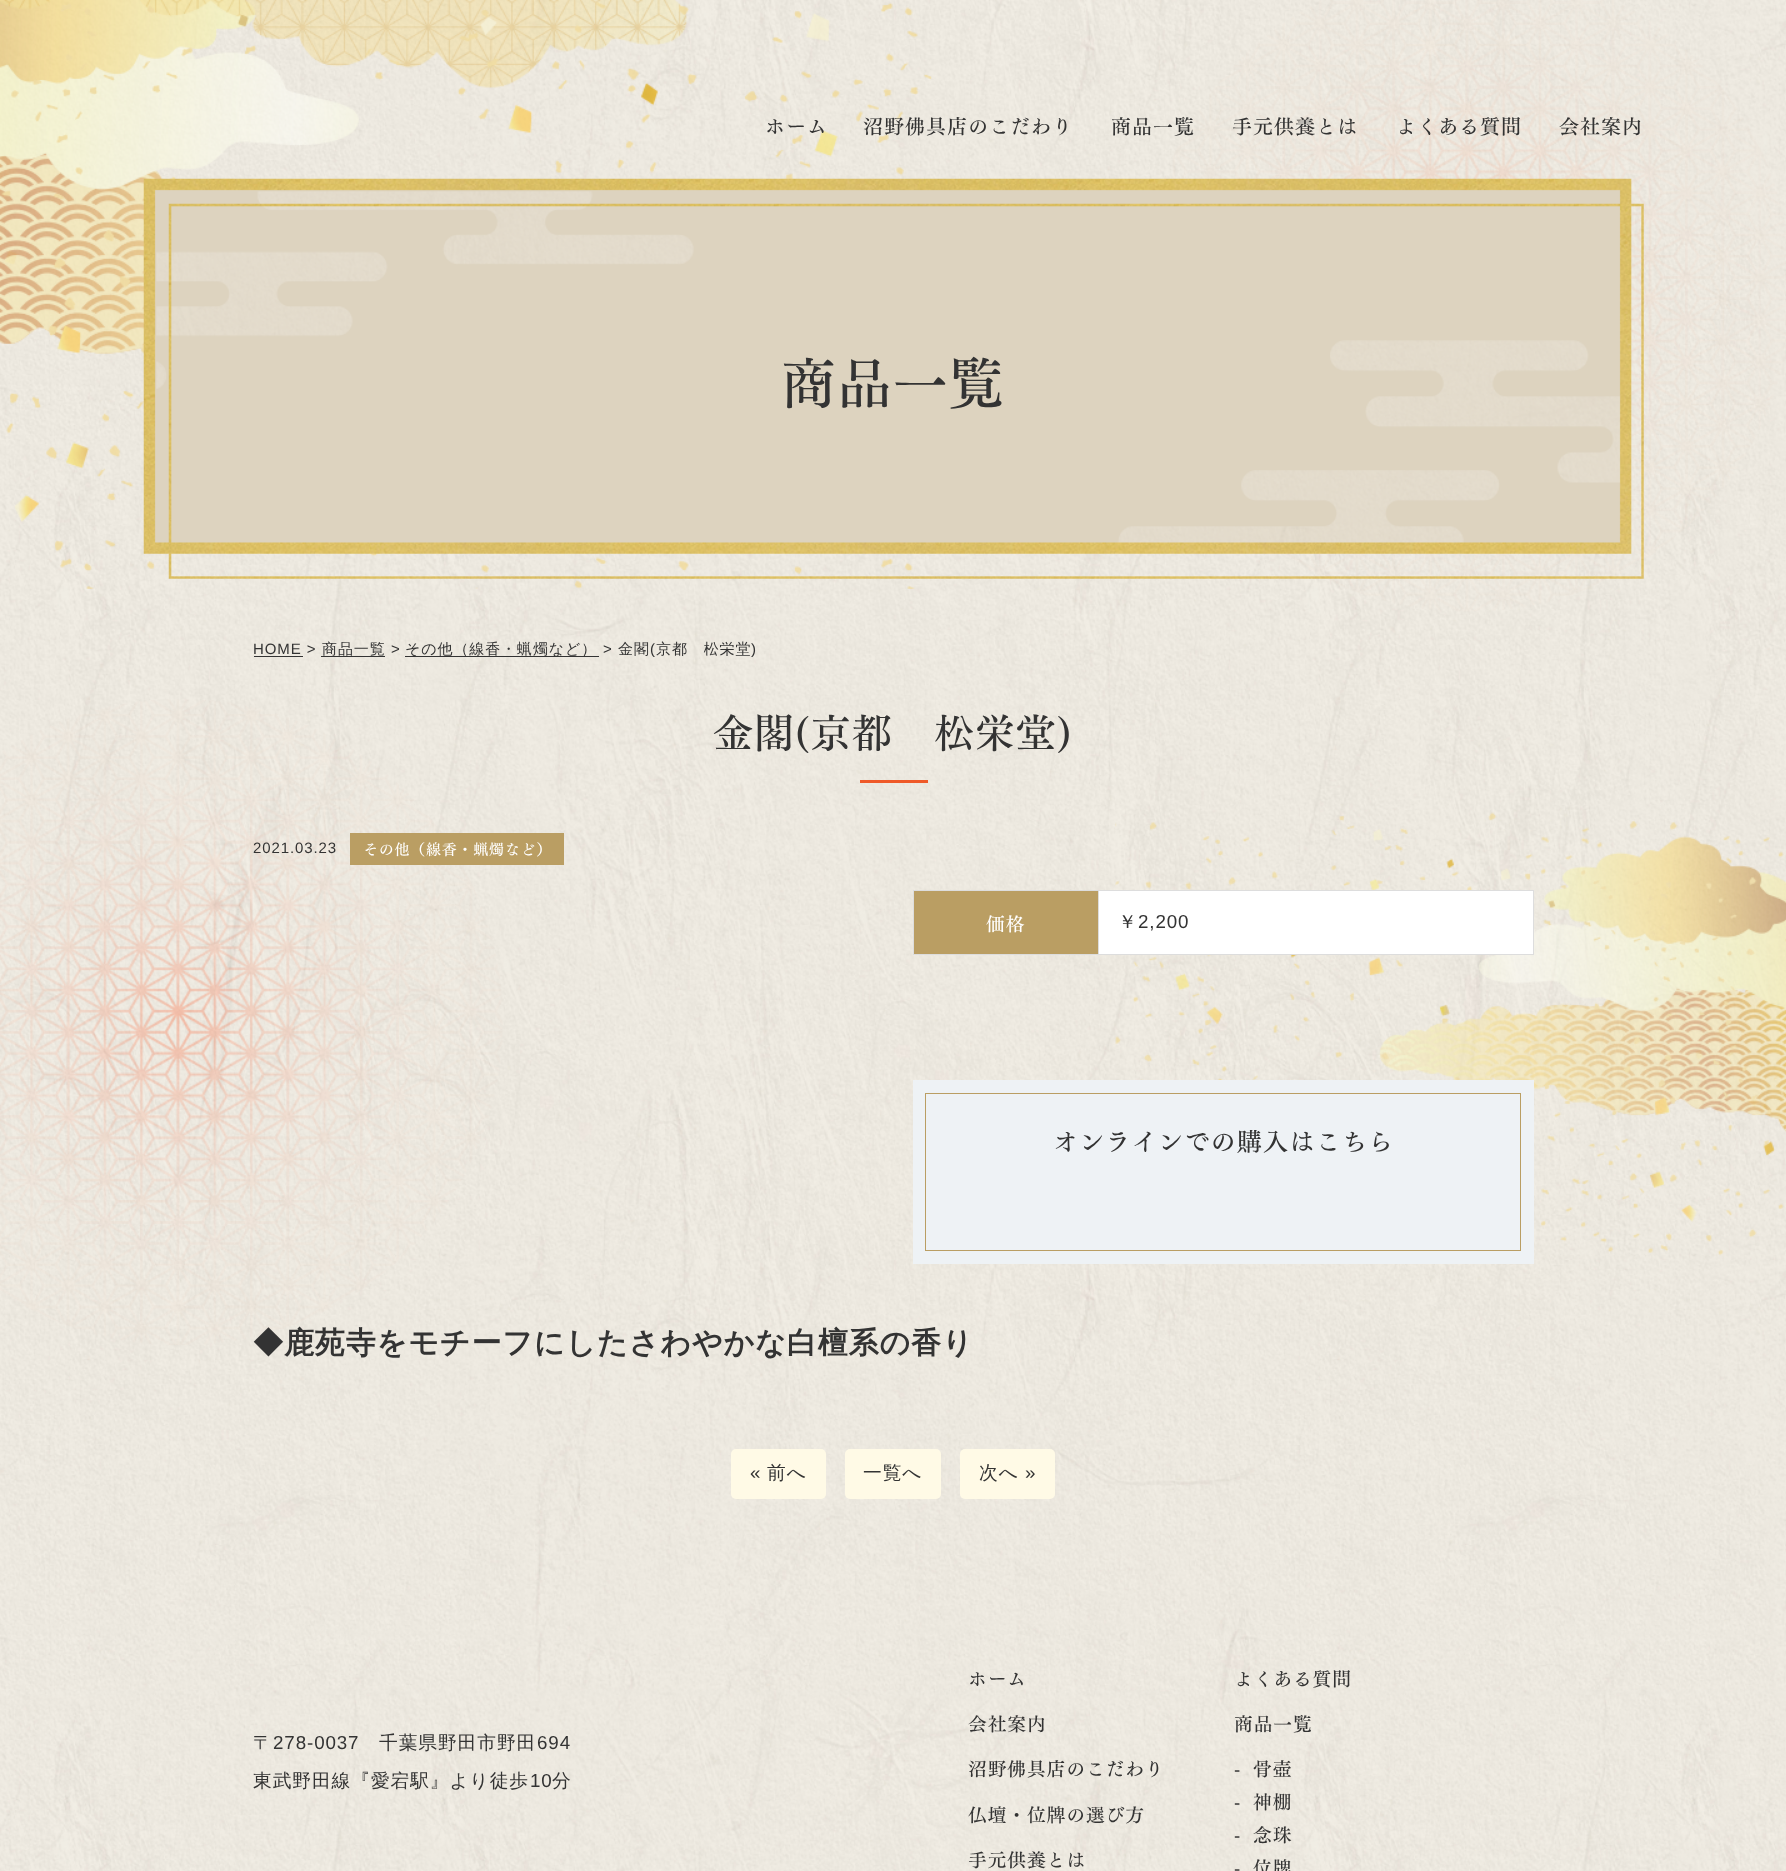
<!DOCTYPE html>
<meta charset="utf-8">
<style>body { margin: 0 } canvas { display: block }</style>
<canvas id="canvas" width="1786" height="1871"></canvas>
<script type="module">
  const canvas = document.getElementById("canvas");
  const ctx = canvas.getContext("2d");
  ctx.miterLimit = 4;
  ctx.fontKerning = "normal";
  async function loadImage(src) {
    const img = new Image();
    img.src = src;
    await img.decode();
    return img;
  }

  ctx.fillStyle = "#ffffff";
  ctx.fillRect(0, 0, 1786, 1871);
  ctx.drawImage(await loadImage("img1.png"), 0, 0, 1786, 1871);
  ctx.letterSpacing = "1px";
  ctx.font = "600 20px 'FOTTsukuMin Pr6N'";
  ctx.fillStyle = "#333333";
  ctx.fillText("ホーム", 765, 134);
  ctx.fillText("沼野佛具店のこだわり", 863, 134);
  ctx.fillText("商品一覧", 1111, 134);
  ctx.fillText("手元供養とは", 1232, 134);
  ctx.fillText("よくある質問", 1396, 134);
  ctx.fillText("会社案内", 1559, 134);
  ctx.drawImage(await loadImage("img2.png"), 143, 178, 1501, 401);
  ctx.letterSpacing = "0.9px";
  ctx.font = "600 55px 'FOTTsukuMin Pr6N'";
  ctx.fillText("商品一覧", 781, 404);
  ctx.font = "15px Liberation Sans";
  ctx.fillText("HOME >", 253, 654);
  ctx.fillRect(254, 656, 49, 1);
  ctx.font = "500 15px WenQuanYi Zen Hei";
  ctx.fillText("商品一覧", 322, 654);
  ctx.fillRect(321, 656, 64, 1);
  ctx.font = "15px Liberation Sans";
  ctx.fillText(">", 391, 654);
  ctx.fillRect(405, 656, 194, 1);
  ctx.font = "500 15px WenQuanYi Zen Hei";
  ctx.fillText("その他（線香・蝋燭など）", 405, 654);
  ctx.font = "15px Liberation Sans";
  ctx.fillText(">", 603, 654);
  ctx.font = "500 15px WenQuanYi Zen Hei";
  ctx.fillText("金閣", 618, 654);
  ctx.font = "15px Liberation Sans";
  ctx.fillText("(", 650, 654);
  ctx.font = "500 15px WenQuanYi Zen Hei";
  ctx.fillText("京都　松栄堂", 656, 654);
  ctx.font = "15px Liberation Sans";
  ctx.fillText(")", 751, 654);
  ctx.fillStyle = "#ef5928";
  ctx.fillRect(860, 780, 68, 3);
  ctx.font = "600 40px 'FOTTsukuMin Pr6N'";
  ctx.fillStyle = "#333333";
  ctx.fillText("金閣(京都　松栄堂)", 713, 748);
  ctx.font = "15px Liberation Sans";
  ctx.fillText("2021.03.23", 253, 853);
  ctx.fillStyle = "#ba9e63";
  ctx.fillRect(350, 833, 214, 32);
  ctx.letterSpacing = "0.75px";
  ctx.font = "600 15px 'FOTTsukuMin Pr6N'";
  ctx.fillStyle = "#ffffff";
  ctx.fillText("その他（線香・蝋燭など）", 363, 855);
  ctx.fillRect(1099, 891, 434, 63);
  ctx.fillStyle = "#dddddd";
  ctx.fillRect(913, 890, 621, 1);
  ctx.fillRect(1533, 890, 1, 65);
  ctx.fillRect(913, 954, 621, 1);
  ctx.fillRect(913, 890, 1, 65);
  ctx.fillStyle = "#ba9e63";
  ctx.fillRect(914, 891, 184, 63);
  ctx.letterSpacing = "0.9px";
  ctx.font = "600 18.75px 'FOTTsukuMin Pr6N'";
  ctx.fillStyle = "#ffffff";
  ctx.fillText("価格", 986, 931);
  ctx.fillStyle = "#dddddd";
  ctx.fillRect(1098, 890, 1, 65);
  ctx.font = "500 18.75px WenQuanYi Zen Hei";
  ctx.fillStyle = "#333333";
  ctx.fillText("￥", 1118, 928);
  ctx.font = "18.75px Liberation Sans";
  ctx.fillText("2,200", 1138, 928);
  ctx.fillStyle = "#eef2f5";
  ctx.fillRect(913, 1080, 621, 184);
  ctx.strokeStyle = "#ba9e63";
  ctx.strokeRect(925.5, 1093.5, 595, 157);
  ctx.letterSpacing = "1.25px";
  ctx.font = "600 25px 'FOTTsukuMin Pr6N'";
  ctx.fillStyle = "#333333";
  ctx.fillText("オンラインでの購入はこちら", 1053, 1151);
  ctx.letterSpacing = "0.9px";
  ctx.font = "bold 30px WenQuanYi Zen Hei";
  ctx.fillText("◆鹿苑寺をモチーフにしたさわやかな白檀系の香り", 253, 1353);
  ctx.fillStyle = "#fffae6";
  ctx.beginPath();
  ctx.roundRect(731, 1449, 95, 50, 5);
  ctx.fill();
  ctx.font = "18.75px Liberation Sans";
  ctx.fillStyle = "#333333";
  ctx.fillText("«", 750, 1479);
  ctx.font = "500 18.75px WenQuanYi Zen Hei";
  ctx.fillText("前へ", 767, 1479);
  ctx.fillStyle = "#fffae6";
  ctx.beginPath();
  ctx.roundRect(845, 1449, 96, 50, 5);
  ctx.fill();
  ctx.fillStyle = "#333333";
  ctx.fillText("一覧へ", 863, 1479);
  ctx.fillStyle = "#fffae6";
  ctx.beginPath();
  ctx.roundRect(960, 1449, 95, 50, 5);
  ctx.fill();
  ctx.fillStyle = "#333333";
  ctx.fillText("次へ", 979, 1479);
  ctx.font = "18.75px Liberation Sans";
  ctx.fillText("»", 1025, 1479);
  ctx.font = "500 18.75px WenQuanYi Zen Hei";
  ctx.fillText("〒", 253, 1749);
  ctx.font = "18.75px Liberation Sans";
  ctx.fillText("278-0037", 273, 1749);
  ctx.font = "500 18.75px WenQuanYi Zen Hei";
  ctx.fillText("千葉県野田市野田", 379, 1749);
  ctx.font = "18.75px Liberation Sans";
  ctx.fillText("694", 537, 1749);
  ctx.font = "500 18.75px WenQuanYi Zen Hei";
  ctx.fillText("東武野田線『愛宕駅』より徒歩", 253, 1787);
  ctx.font = "18.75px Liberation Sans";
  ctx.fillText("10", 530, 1787);
  ctx.font = "500 18.75px WenQuanYi Zen Hei";
  ctx.fillText("分", 552, 1787);
  ctx.font = "600 18.75px 'FOTTsukuMin Pr6N'";
  ctx.fillText("ホーム", 968, 1686);
  ctx.fillText("会社案内", 968, 1731);
  ctx.fillText("沼野佛具店のこだわり", 968, 1776);
  ctx.fillText("仏壇・位牌の選び方", 968, 1822);
  ctx.fillText("手元供養とは", 968, 1867);
  ctx.fillText("よくある質問", 1234, 1686);
  ctx.fillText("商品一覧", 1234, 1731);
  ctx.font = "18.75px Liberation Sans";
  ctx.fillText("-", 1234, 1776);
  ctx.font = "600 18.75px 'FOTTsukuMin Pr6N'";
  ctx.fillText("骨壺", 1253, 1776);
  ctx.font = "18.75px Liberation Sans";
  ctx.fillText("-", 1234, 1809);
  ctx.font = "600 18.75px 'FOTTsukuMin Pr6N'";
  ctx.fillText("神棚", 1253, 1809);
  ctx.font = "18.75px Liberation Sans";
  ctx.fillText("-", 1234, 1842);
  ctx.font = "600 18.75px 'FOTTsukuMin Pr6N'";
  ctx.fillText("念珠", 1253, 1842);
  ctx.font = "18.75px Liberation Sans";
  ctx.fillText("-", 1234, 1875);
  ctx.font = "600 18.75px 'FOTTsukuMin Pr6N'";
  ctx.fillText("位牌", 1253, 1875);
</script>
